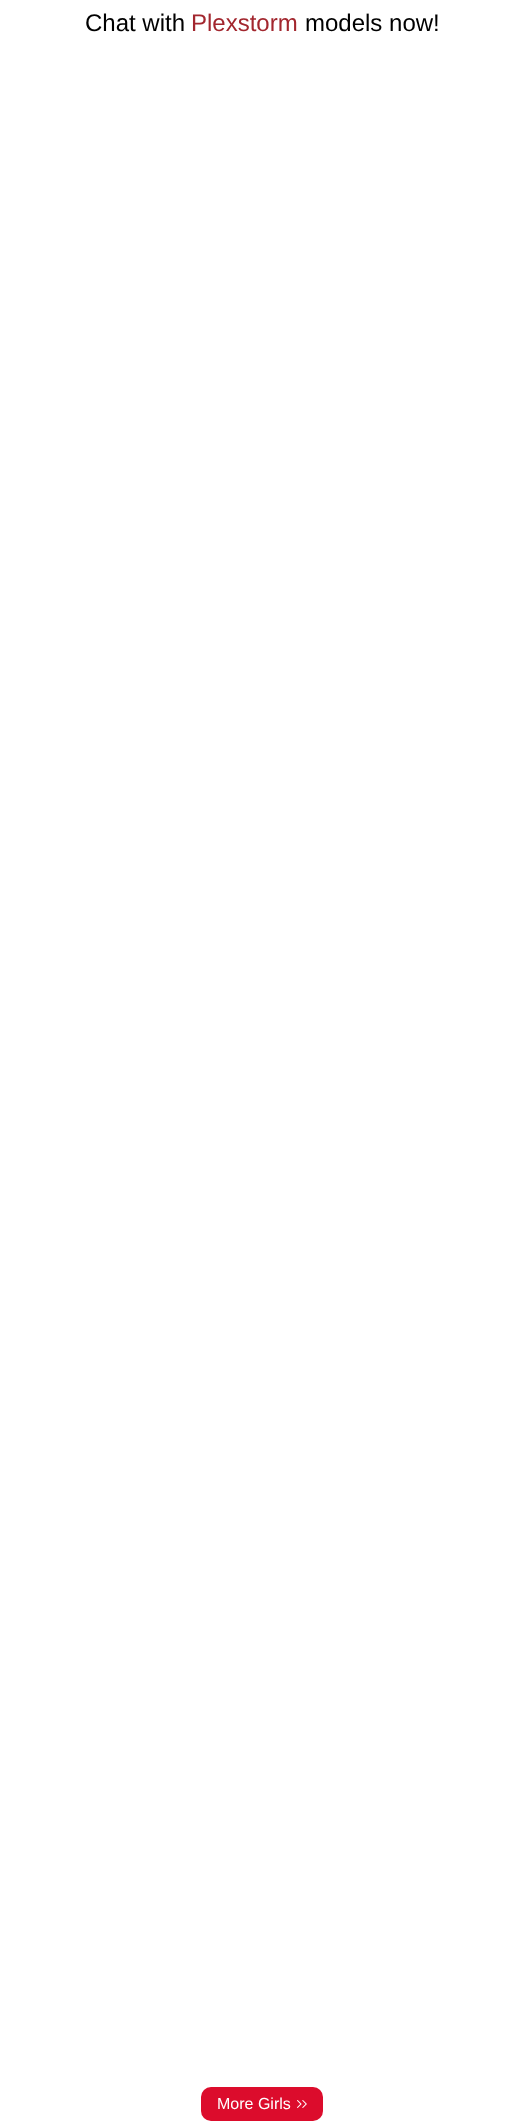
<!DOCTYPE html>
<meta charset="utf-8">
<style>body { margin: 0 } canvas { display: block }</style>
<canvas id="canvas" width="524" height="2125"></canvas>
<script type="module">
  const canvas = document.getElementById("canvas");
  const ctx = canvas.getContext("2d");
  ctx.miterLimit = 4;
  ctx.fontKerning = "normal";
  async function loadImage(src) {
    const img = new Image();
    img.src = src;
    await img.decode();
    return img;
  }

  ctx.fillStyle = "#ffffff";
  ctx.fillRect(0, 0, 524, 2125);
  ctx.font = "24px Liberation Sans";
  ctx.fillStyle = "#000000";
  ctx.fillText("Chat with", 85, 31);
  ctx.fillStyle = "#a2262e";
  ctx.fillText("Plexstorm", 191, 31);
  ctx.fillStyle = "#000000";
  ctx.fillText("models now!", 305, 31);
  ctx.fillStyle = "#dc0c2c";
  ctx.beginPath();
  ctx.roundRect(201, 2087, 122, 34, 10);
  ctx.fill();
  ctx.font = "16px Liberation Sans";
  ctx.fillStyle = "#ffffff";
  ctx.fillText("More Girls", 217, 2109);
  ctx.drawImage(await loadImage("img1.png"), 297, 2100, 10, 8);
</script>
